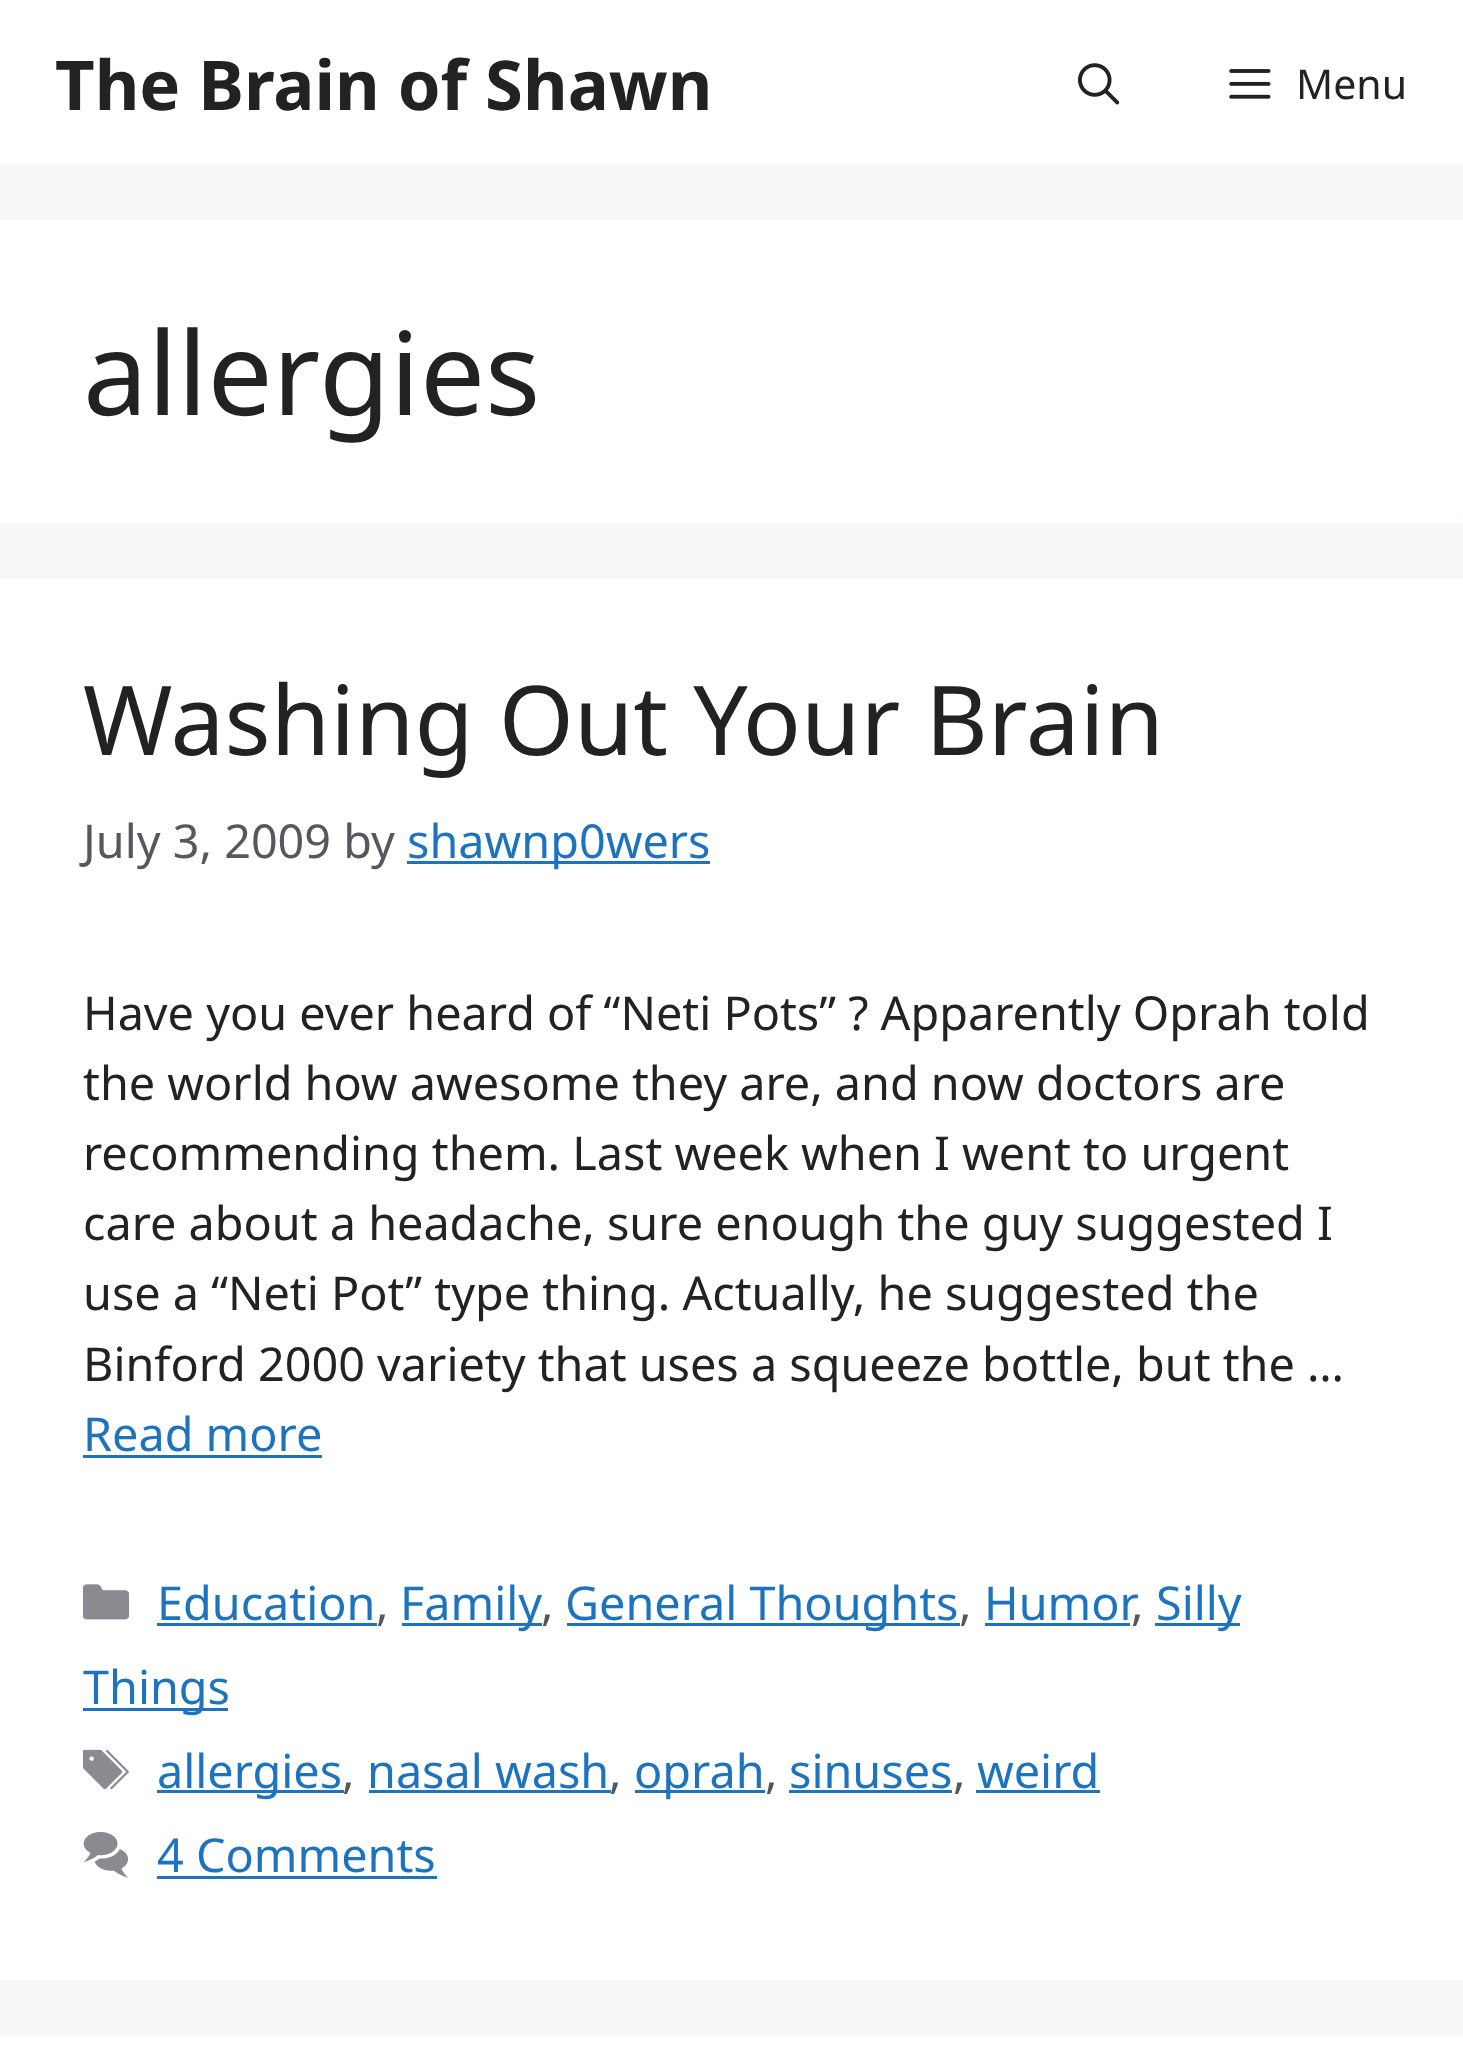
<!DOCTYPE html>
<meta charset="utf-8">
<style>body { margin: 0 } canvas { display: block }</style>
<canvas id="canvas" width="1463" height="2061"></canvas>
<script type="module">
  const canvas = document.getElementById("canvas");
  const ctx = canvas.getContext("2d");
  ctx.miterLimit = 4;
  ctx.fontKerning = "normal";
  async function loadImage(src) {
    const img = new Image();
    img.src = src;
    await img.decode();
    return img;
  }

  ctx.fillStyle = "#f7f8f9";
  ctx.fillRect(0, 0, 1463, 2061);
  ctx.fillStyle = "#ffffff";
  ctx.fillRect(0, 0, 1463, 165);
  ctx.font = "bold 68.75px Noto Sans";
  ctx.fillStyle = "#222222";
  ctx.fillText("The Brain of Shawn", 55, 110);
  ctx.drawImage(await loadImage("img1.png"), 1078, 63, 41, 42);
  ctx.drawImage(await loadImage("img2.png"), 1229, 69, 42, 30);
  ctx.font = "41px Noto Sans";
  ctx.fillText("Menu", 1296, 99);
  ctx.fillStyle = "#ffffff";
  ctx.fillRect(0, 220, 1463, 303);
  ctx.font = "115.5px Noto Sans";
  ctx.fillStyle = "#222222";
  ctx.fillText("allergies", 83, 415);
  ctx.fillStyle = "#ffffff";
  ctx.fillRect(0, 578, 1463, 1402);
  ctx.font = "96.25px Noto Sans";
  ctx.fillStyle = "#222222";
  ctx.fillText("Washing Out Your Brain", 83, 755);
  ctx.font = "46.75px Noto Sans";
  ctx.fillStyle = "#575760";
  ctx.fillText("July 3, 2009 by", 83, 858);
  ctx.fillStyle = "#1e73be";
  ctx.fillRect(407, 861, 303, 3);
  ctx.fillText("shawnp0wers", 407, 858);
  ctx.fillStyle = "#222222";
  ctx.fillText("Have you ever heard of “Neti Pots” ? Apparently Oprah told", 83, 1030);
  ctx.fillText("the world how awesome they are, and now doctors are", 83, 1100);
  ctx.fillText("recommending them. Last week when I went to urgent", 83, 1170);
  ctx.fillText("care about a headache, sure enough the guy suggested I", 83, 1240);
  ctx.fillText("use a “Neti Pot” type thing. Actually, he suggested the", 83, 1310);
  ctx.fillText("Binford 2000 variety that uses a squeeze bottle, but the …", 83, 1381);
  ctx.fillStyle = "#1e73be";
  ctx.fillText("Read more", 83, 1451);
  ctx.fillRect(83, 1455, 239, 3);
  ctx.drawImage(await loadImage("img3.png"), 83, 1584, 46, 36);
  ctx.fillText("Education", 157, 1620);
  ctx.fillRect(157, 1623, 220, 3);
  ctx.fillStyle = "#575760";
  ctx.fillText(",", 376, 1620);
  ctx.fillStyle = "#1e73be";
  ctx.fillRect(402, 1623, 140, 3);
  ctx.fillText("Family", 400, 1620);
  ctx.fillStyle = "#575760";
  ctx.fillText(",", 541, 1620);
  ctx.fillStyle = "#1e73be";
  ctx.fillRect(567, 1623, 393, 3);
  ctx.fillText("General Thoughts", 565, 1620);
  ctx.fillStyle = "#575760";
  ctx.fillText(",", 959, 1620);
  ctx.fillStyle = "#1e73be";
  ctx.fillText("Humor", 984, 1620);
  ctx.fillRect(985, 1623, 145, 3);
  ctx.fillRect(1155, 1623, 85, 3);
  ctx.fillText("Silly", 1156, 1620);
  ctx.fillStyle = "#575760";
  ctx.fillText(",", 1131, 1620);
  ctx.fillStyle = "#1e73be";
  ctx.fillRect(83, 1708, 145, 3);
  ctx.fillText("Things", 83, 1704);
  ctx.drawImage(await loadImage("img4.png"), 83, 1749, 46, 41);
  ctx.fillRect(157, 1790, 187, 3);
  ctx.fillText("allergies", 157, 1788);
  ctx.fillStyle = "#575760";
  ctx.fillText(",", 342, 1788);
  ctx.fillStyle = "#1e73be";
  ctx.fillText("nasal wash", 367, 1788);
  ctx.fillRect(369, 1790, 242, 3);
  ctx.fillStyle = "#575760";
  ctx.fillText(",", 609, 1788);
  ctx.fillStyle = "#1e73be";
  ctx.fillRect(635, 1790, 130, 3);
  ctx.fillText("oprah", 634, 1788);
  ctx.fillStyle = "#575760";
  ctx.fillText(",", 765, 1788);
  ctx.fillStyle = "#1e73be";
  ctx.fillText("sinuses", 789, 1788);
  ctx.fillRect(789, 1790, 163, 3);
  ctx.fillStyle = "#575760";
  ctx.fillText(",", 953, 1788);
  ctx.fillStyle = "#1e73be";
  ctx.fillText("weird", 977, 1788);
  ctx.fillRect(976, 1790, 124, 3);
  ctx.drawImage(await loadImage("img5.png"), 83, 1832, 45, 46);
  ctx.fillText("4 Comments", 157, 1872);
  ctx.fillRect(157, 1876, 280, 3);
  ctx.fillStyle = "#ffffff";
  ctx.fillRect(0, 2035, 1463, 26);
</script>
